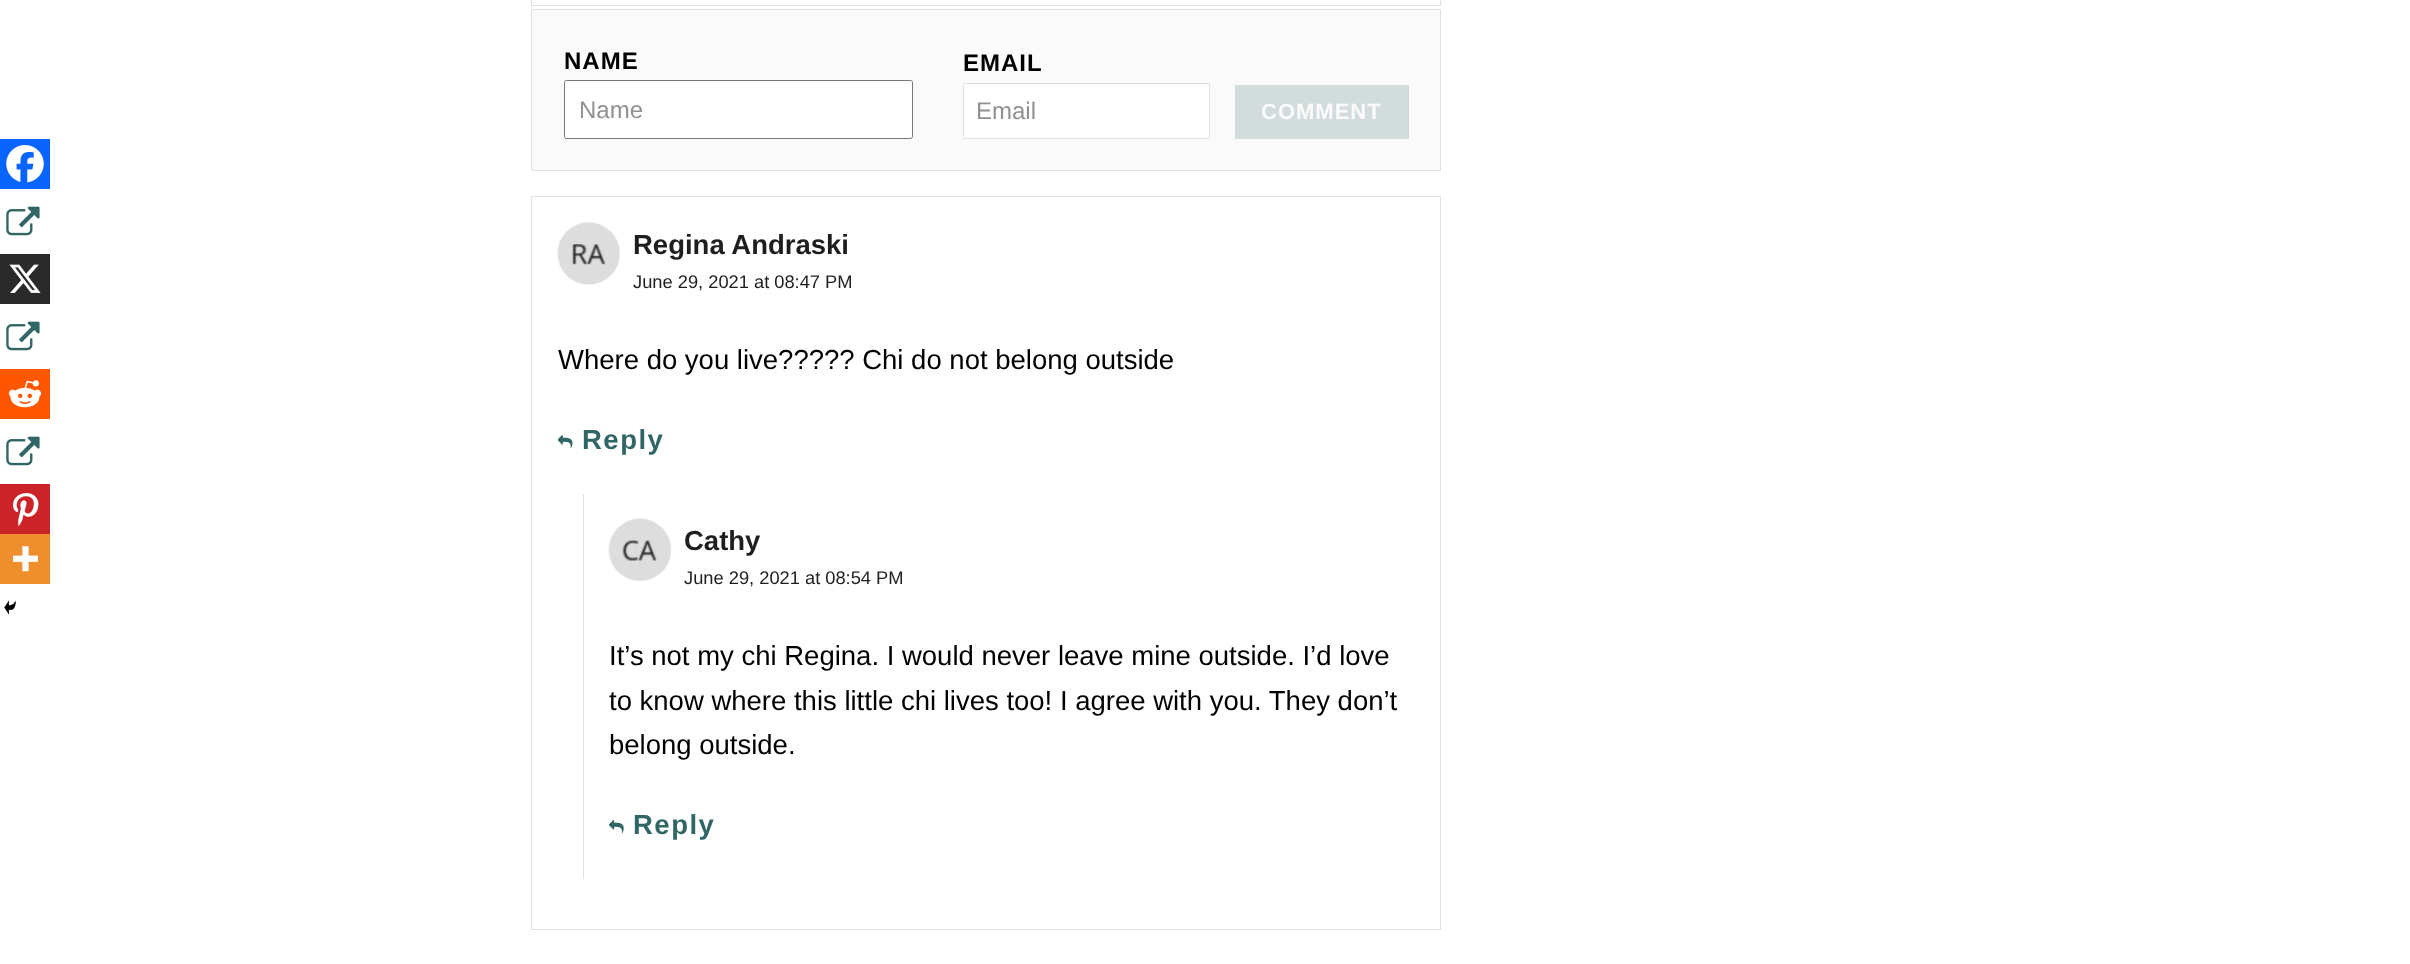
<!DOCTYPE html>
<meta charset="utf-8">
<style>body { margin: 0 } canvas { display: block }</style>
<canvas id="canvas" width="2410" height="964"></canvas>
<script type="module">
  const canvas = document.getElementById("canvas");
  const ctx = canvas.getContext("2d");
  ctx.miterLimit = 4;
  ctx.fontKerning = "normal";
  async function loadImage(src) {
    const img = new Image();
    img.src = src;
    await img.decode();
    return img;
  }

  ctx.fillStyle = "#ffffff";
  ctx.fillRect(0, 0, 2410, 964);
  ctx.fillStyle = "#0765fe";
  ctx.fillRect(0, 139, 50, 50);
  ctx.drawImage(await loadImage("img1.png"), 6, 145, 38, 38);
  ctx.drawImage(await loadImage("img2.png"), 6, 206, 34, 30);
  ctx.fillStyle = "#2a2a2a";
  ctx.fillRect(0, 254, 50, 50);
  ctx.drawImage(await loadImage("img3.png"), 9, 264, 32, 29);
  ctx.drawImage(await loadImage("img2.png"), 6, 321, 34, 30);
  ctx.fillStyle = "#ff5700";
  ctx.fillRect(0, 369, 50, 50);
  ctx.drawImage(await loadImage("img4.png"), 8, 380, 34, 28);
  ctx.drawImage(await loadImage("img2.png"), 6, 436, 34, 30);
  ctx.fillStyle = "#cc2329";
  ctx.fillRect(0, 484, 50, 50);
  ctx.drawImage(await loadImage("img5.png"), 13, 493, 26, 33);
  ctx.fillStyle = "#ee8e2d";
  ctx.fillRect(0, 534, 50, 50);
  ctx.drawImage(await loadImage("img6.png"), 12, 546, 26, 26);
  ctx.drawImage(await loadImage("img7.png"), 4, 600, 12, 15);
  ctx.strokeStyle = "#e1e1e1";
  ctx.strokeRect(531.5, -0.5, 909, 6);
  ctx.fillStyle = "#fafafa";
  ctx.beginPath();
  ctx.rect(531.5, 9.5, 909, 161);
  ctx.fill();
  ctx.stroke();
  ctx.letterSpacing = "1px";
  ctx.font = "bold 24px Liberation Sans";
  ctx.fillStyle = "#000000";
  ctx.fillText("NAME", 564, 69);
  ctx.fillStyle = "#ffffff";
  ctx.beginPath();
  ctx.roundRect(564.5, 80.5, 348, 58, 2);
  ctx.fill();
  ctx.strokeStyle = "#767676";
  ctx.stroke();
  ctx.letterSpacing = "0px";
  ctx.font = "24px Liberation Sans";
  ctx.fillStyle = "#919191";
  ctx.fillText("Name", 579, 118);
  ctx.letterSpacing = "1px";
  ctx.font = "bold 24px Liberation Sans";
  ctx.fillStyle = "#000000";
  ctx.fillText("EMAIL", 963, 71);
  ctx.fillStyle = "#ffffff";
  ctx.beginPath();
  ctx.rect(963.5, 83.5, 246, 55);
  ctx.fill();
  ctx.strokeStyle = "#e1e1e1";
  ctx.stroke();
  ctx.letterSpacing = "0px";
  ctx.font = "24px Liberation Sans";
  ctx.fillStyle = "#919191";
  ctx.fillText("Email", 976, 119);
  ctx.fillStyle = "#d2dcdc";
  ctx.fillRect(1235, 85, 174, 54);
  ctx.letterSpacing = "1px";
  ctx.font = "bold 22px Liberation Sans";
  ctx.fillStyle = "#fbfbfb";
  ctx.fillText("COMMENT", 1261, 119);
  ctx.strokeRect(531.5, 196.5, 909, 733);
  ctx.drawImage(await loadImage("img8.png"), 557, 222, 64, 63);
  ctx.letterSpacing = "0px";
  ctx.font = "bold 27.5px Liberation Sans";
  ctx.fillStyle = "#1e1e1e";
  ctx.fillText("Regina Andraski", 633, 254);
  ctx.font = "18.3px Liberation Sans";
  ctx.fillText("June 29, 2021 at 08:47 PM", 633, 288);
  ctx.font = "27.5px Liberation Sans";
  ctx.fillStyle = "#000000";
  ctx.fillText("Where do you live????? Chi do not belong outside", 558, 369);
  ctx.drawImage(await loadImage("img9.png"), 558, 435, 15, 14);
  ctx.letterSpacing = "1.5px";
  ctx.font = "bold 27.5px Liberation Sans";
  ctx.fillStyle = "#306665";
  ctx.fillText("Reply", 582, 449);
  ctx.fillStyle = "#e1e1e1";
  ctx.fillRect(583, 494, 1, 385);
  ctx.drawImage(await loadImage("img10.png"), 608, 518, 64, 64);
  ctx.letterSpacing = "0px";
  ctx.fillStyle = "#1e1e1e";
  ctx.fillText("Cathy", 684, 550);
  ctx.font = "18.3px Liberation Sans";
  ctx.fillText("June 29, 2021 at 08:54 PM", 684, 584);
  ctx.font = "27.5px Liberation Sans";
  ctx.fillStyle = "#000000";
  ctx.fillText("It’s not my chi Regina. I would never leave mine outside. I’d love", 609, 665);
  ctx.fillText("to know where this little chi lives too! I agree with you. They don’t", 609, 710);
  ctx.fillText("belong outside.", 609, 754);
  ctx.drawImage(await loadImage("img11.png"), 609, 820, 15, 14);
  ctx.letterSpacing = "1.5px";
  ctx.font = "bold 27.5px Liberation Sans";
  ctx.fillStyle = "#306665";
  ctx.fillText("Reply", 633, 834);
</script>
